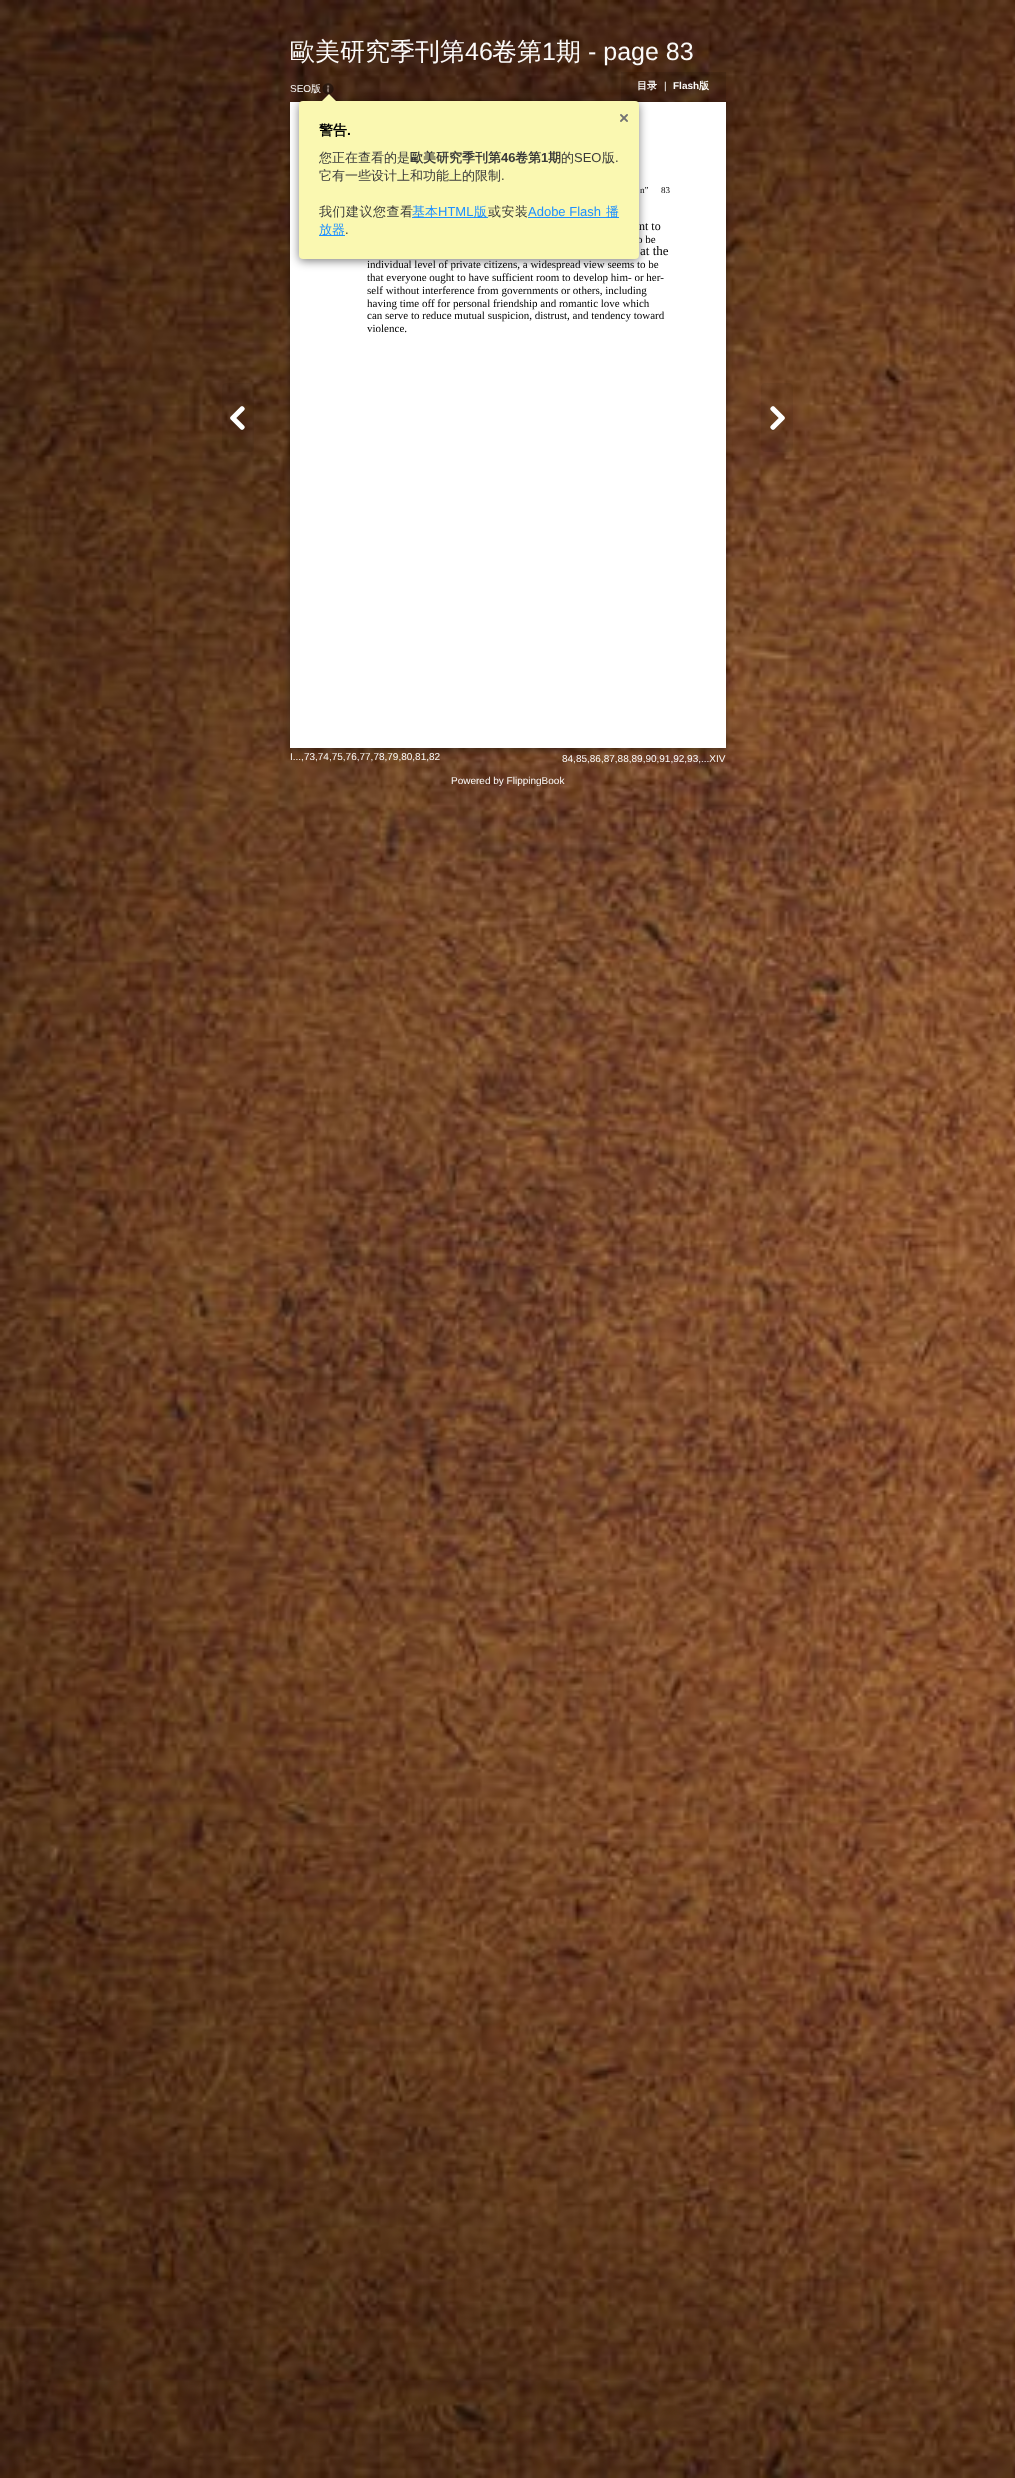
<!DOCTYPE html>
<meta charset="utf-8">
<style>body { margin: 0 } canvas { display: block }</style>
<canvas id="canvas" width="1015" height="2478"></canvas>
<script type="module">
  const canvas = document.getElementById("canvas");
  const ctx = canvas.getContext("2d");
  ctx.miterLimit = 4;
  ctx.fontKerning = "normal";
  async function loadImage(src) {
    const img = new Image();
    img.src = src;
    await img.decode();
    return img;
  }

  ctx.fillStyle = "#ffffff";
  ctx.fillRect(0, 0, 1015, 2478);
  ctx.drawImage(await loadImage("img1.png"), 0, 0, 1015, 2478);
  ctx.font = "500 25px WenQuanYi Zen Hei";
  ctx.fillStyle = "#fcfbfa";
  ctx.fillText("歐美研究季刊第", 290, 60);
  ctx.font = "25px Liberation Sans";
  ctx.fillText("46", 465, 60);
  ctx.font = "500 25px WenQuanYi Zen Hei";
  ctx.fillText("卷第", 492, 60);
  ctx.font = "25px Liberation Sans";
  ctx.fillText("1", 542, 60);
  ctx.font = "500 25px WenQuanYi Zen Hei";
  ctx.fillText("期", 556, 60);
  ctx.font = "25px Liberation Sans";
  ctx.fillText("- page 83", 588, 60);
  ctx.fillStyle = "rgba(0, 0, 0, 0.4)";
  ctx.filter = "blur(3px)";
  ctx.beginPath();
  ctx.rect(290, 105, 436, 646);
  ctx.fill();
  ctx.filter = "none";
  ctx.fillStyle = "#ffffff";
  ctx.fillRect(290, 102, 436, 646);
  ctx.font = "10px Liberation Sans";
  ctx.fillStyle = "#fcfbfa";
  ctx.fillText("SEO", 290, 92);
  ctx.font = "500 10px WenQuanYi Zen Hei";
  ctx.fillText("版", 311, 92);
  ctx.drawImage(await loadImage("img2.png"), 322, 83, 12, 12);
  ctx.fillStyle = "rgba(0, 0, 0, 0.1)";
  ctx.fillRect(621, 72, 105, 30);
  ctx.fillStyle = "rgba(0, 0, 0, 0.5)";
  ctx.filter = "blur(5px)";
  ctx.beginPath();
  ctx.roundRect(299, 103, 340, 158, 4);
  ctx.fill();
  ctx.filter = "none";
  ctx.font = "11px Liberation Serif";
  ctx.fillStyle = "#000000";
  ctx.fillText("o be", 637, 243);
  ctx.fillStyle = "#faf8b1";
  ctx.beginPath();
  ctx.roundRect(299, 101, 340, 158, 4);
  ctx.fill();
  ctx.beginPath();
  ctx.moveTo(339, 104);
  ctx.lineTo(319, 104);
  ctx.lineTo(329, 94);
  ctx.closePath();
  ctx.fill();
  ctx.drawImage(await loadImage("img3.png"), 620, 114, 8, 8);
  ctx.font = "bold 14px WenQuanYi Zen Hei";
  ctx.fillStyle = "#000000";
  ctx.fillText("警告", 319, 135);
  ctx.font = "bold 14px Liberation Sans";
  ctx.fillText(".", 347, 135);
  ctx.font = "500 13px WenQuanYi Zen Hei";
  ctx.fillStyle = "#3a3a3a";
  ctx.fillText("您正在查看的是", 319, 162);
  ctx.font = "bold 13px WenQuanYi Zen Hei";
  ctx.fillText("歐美研究季刊第", 410, 162);
  ctx.font = "bold 13px Liberation Sans";
  ctx.fillText("46", 501, 162);
  ctx.font = "bold 13px WenQuanYi Zen Hei";
  ctx.fillText("卷第", 515, 162);
  ctx.font = "bold 13px Liberation Sans";
  ctx.fillText("1", 541, 162);
  ctx.font = "bold 13px WenQuanYi Zen Hei";
  ctx.fillText("期", 548, 162);
  ctx.font = "500 13px WenQuanYi Zen Hei";
  ctx.fillText("的", 561, 162);
  ctx.font = "13px Liberation Sans";
  ctx.fillText("SEO", 574, 162);
  ctx.font = "500 13px WenQuanYi Zen Hei";
  ctx.fillText("版", 602, 162);
  ctx.font = "13px Liberation Sans";
  ctx.fillText(".", 615, 162);
  ctx.font = "500 13px WenQuanYi Zen Hei";
  ctx.fillText("它有一些设计上和功能上的限制", 319, 180);
  ctx.font = "13px Liberation Sans";
  ctx.fillText(".", 501, 180);
  ctx.letterSpacing = "0.5px";
  ctx.font = "500 13px WenQuanYi Zen Hei";
  ctx.fillText("我们建议您查看", 319, 216);
  ctx.fillStyle = "#1e90ff";
  ctx.fillRect(412, 217, 76, 1);
  ctx.letterSpacing = "0px";
  ctx.fillText("基本", 412, 216);
  ctx.font = "13px Liberation Sans";
  ctx.fillText("HTML", 438, 216);
  ctx.font = "500 13px WenQuanYi Zen Hei";
  ctx.fillText("版", 474, 216);
  ctx.letterSpacing = "0.5px";
  ctx.fillStyle = "#3a3a3a";
  ctx.fillText("或安装", 488, 216);
  ctx.letterSpacing = "0px";
  ctx.font = "13px Liberation Sans";
  ctx.fillStyle = "#1e90ff";
  ctx.fillText("Adobe Flash", 528, 216);
  ctx.fillRect(528, 217, 91, 1);
  ctx.font = "500 13px WenQuanYi Zen Hei";
  ctx.fillText("播", 606, 216);
  ctx.fillRect(319, 235, 26, 1);
  ctx.fillText("放器", 319, 234);
  ctx.font = "13px Liberation Sans";
  ctx.fillStyle = "#3a3a3a";
  ctx.fillText(".", 345, 234);
  ctx.font = "bold 10px WenQuanYi Zen Hei";
  ctx.fillStyle = "#fcfbfa";
  ctx.fillText("目录", 637, 89);
  ctx.font = "10px Liberation Sans";
  ctx.fillText("|", 664, 89);
  ctx.font = "bold 10px Liberation Sans";
  ctx.fillText("Flash", 673, 89);
  ctx.font = "bold 10px WenQuanYi Zen Hei";
  ctx.fillText("版", 699, 89);
  ctx.font = "9px Liberation Serif";
  ctx.fillStyle = "#000000";
  ctx.fillText("n”", 640, 193);
  ctx.fillText("83", 661, 193);
  ctx.font = "12px Liberation Serif";
  ctx.fillText("nt to", 639, 230);
  ctx.font = "13px Liberation Serif";
  ctx.fillText("at the", 640, 255);
  ctx.font = "11px Liberation Serif";
  ctx.fillText("individual level of private citizens, a widespread view seems to be", 367, 268);
  ctx.fillText("that everyone ought to have sufficient room to develop him- or her-", 367, 281);
  ctx.fillText("self without interference from governments or others, including", 367, 294);
  ctx.fillText("having time off for personal friendship and romantic love which", 367, 307);
  ctx.fillText("can serve to reduce mutual suspicion, distrust, and tendency toward", 367, 319);
  ctx.fillText("violence.", 367, 332);
  ctx.font = "10px Liberation Sans";
  ctx.fillStyle = "#fcfbfa";
  ctx.fillText("I...,73,74,75,76,77,78,79,80,81,82", 290, 760);
  ctx.fillText("84,85,86,87,88,89,90,91,92,93,...XIV", 562, 762);
  ctx.fillText("Powered by FlippingBook", 451, 784);
  ctx.drawImage(await loadImage("img4.png"), 222, 383, 32, 69);
  ctx.drawImage(await loadImage("img5.png"), 761, 383, 32, 69);
</script>
